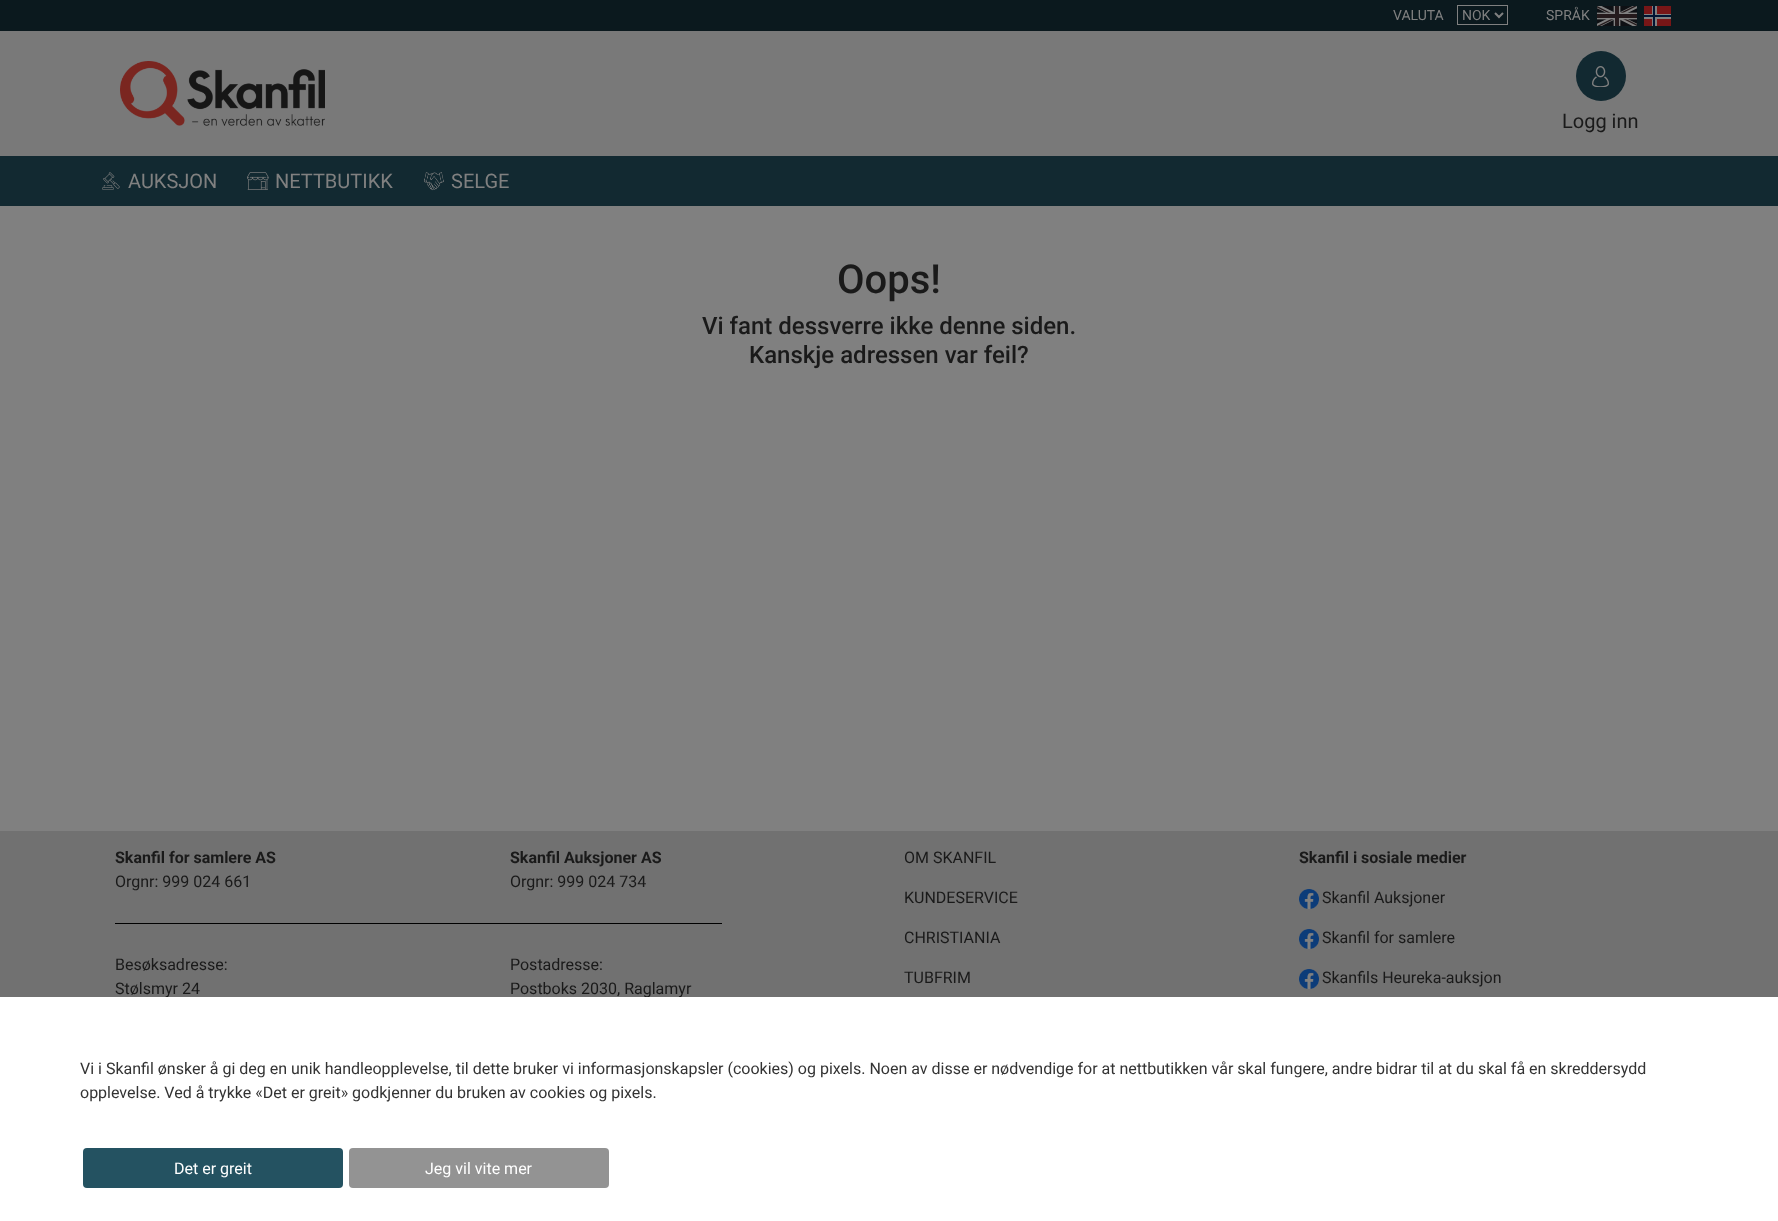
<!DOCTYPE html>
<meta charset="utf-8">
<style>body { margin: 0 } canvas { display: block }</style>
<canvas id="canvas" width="1778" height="1221"></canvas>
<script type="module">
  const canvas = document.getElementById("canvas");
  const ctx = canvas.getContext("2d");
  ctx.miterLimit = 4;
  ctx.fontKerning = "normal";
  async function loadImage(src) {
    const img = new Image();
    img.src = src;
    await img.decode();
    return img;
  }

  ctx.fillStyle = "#808080";
  ctx.fillRect(0, 0, 1778, 1221);
  ctx.fillStyle = "#122931";
  ctx.fillRect(0, 156, 1778, 50);
  ctx.fillStyle = "#0b191e";
  ctx.fillRect(0, 0, 1778, 31);
  ctx.font = "14px Roboto";
  ctx.fillStyle = "#808080";
  ctx.fillText("VALUTA", 1393, 20);
  ctx.strokeStyle = "#808080";
  ctx.strokeRect(1457.5, 5.5, 50, 19);
  ctx.beginPath();
  ctx.moveTo(1495, 13);
  ctx.lineTo(1499, 17);
  ctx.lineTo(1503, 13);
  ctx.lineWidth = 2;
  ctx.stroke();
  ctx.fillText("NOK", 1462, 20);
  ctx.fillText("SPRÅK", 1546, 20);
  ctx.drawImage(await loadImage("img1.png"), 1597, 6, 40, 20);
  ctx.fillStyle = "#781617";
  ctx.fillRect(1644, 6, 27, 20);
  ctx.fillStyle = "#808080";
  ctx.fillRect(1652, 6, 5, 20);
  ctx.fillRect(1644, 14, 27, 5);
  ctx.fillStyle = "#001434";
  ctx.fillRect(1653, 6, 2, 20);
  ctx.fillRect(1644, 15, 27, 2);
  ctx.fillStyle = "#797979";
  ctx.fillRect(0, 31, 1778, 125);
  ctx.drawImage(await loadImage("img2.png"), 120, 61, 205, 65);
  ctx.fillStyle = "#122931";
  ctx.beginPath();
  ctx.arc(1601, 76, 25, 0, Math.PI * 2);
  ctx.fill();
  ctx.drawImage(await loadImage("img3.png"), 1592, 66, 17, 21);
  ctx.font = "20px Roboto";
  ctx.fillStyle = "#1a1a1a";
  ctx.fillText("Logg inn", 1562, 128);
  ctx.drawImage(await loadImage("img4.png"), 102, 172, 18, 18);
  ctx.fillStyle = "#808080";
  ctx.fillText("AUKSJON", 128, 188);
  ctx.drawImage(await loadImage("img5.png"), 247, 172, 22, 18);
  ctx.fillText("NETTBUTIKK", 275, 188);
  ctx.drawImage(await loadImage("img6.png"), 424, 172, 20, 19);
  ctx.fillText("SELGE", 451, 188);
  ctx.font = "500 40px Roboto";
  ctx.fillStyle = "#1a1a1a";
  ctx.fillText("Oops!", 837, 293);
  ctx.font = "500 24px Roboto";
  ctx.fillText("Vi fant dessverre ikke denne siden.", 702, 334);
  ctx.fillText("Kanskje adressen var feil?", 749, 363);
  ctx.fillStyle = "#717171";
  ctx.fillRect(0, 831, 1778, 166);
  ctx.font = "bold 16px Roboto";
  ctx.fillStyle = "#1a1a1a";
  ctx.fillText("Skanfil for samlere AS", 115, 863);
  ctx.font = "16px Roboto";
  ctx.fillText("Orgnr: 999 024 661", 115, 887);
  ctx.font = "bold 16px Roboto";
  ctx.fillText("Skanfil Auksjoner AS", 510, 863);
  ctx.font = "16px Roboto";
  ctx.fillText("Orgnr: 999 024 734", 510, 887);
  ctx.fillStyle = "#000000";
  ctx.fillRect(115, 923, 607, 1);
  ctx.fillStyle = "#1a1a1a";
  ctx.fillText("Besøksadresse:", 115, 970);
  ctx.fillText("Stølsmyr 24", 115, 994);
  ctx.fillText("Postadresse:", 510, 970);
  ctx.fillText("Postboks 2030, Raglamyr", 510, 994);
  ctx.fillText("OM SKANFIL", 904, 863);
  ctx.fillText("KUNDESERVICE", 904, 903);
  ctx.fillText("CHRISTIANIA", 904, 943);
  ctx.fillText("TUBFRIM", 904, 983);
  ctx.font = "bold 16px Roboto";
  ctx.fillText("Skanfil i sosiale medier", 1299, 863);
  ctx.drawImage(await loadImage("img7.png"), 1299, 889, 20, 20);
  ctx.font = "16px Roboto";
  ctx.fillText("Skanfil Auksjoner", 1322, 903);
  ctx.drawImage(await loadImage("img7.png"), 1299, 929, 20, 20);
  ctx.fillText("Skanfil for samlere", 1322, 943);
  ctx.drawImage(await loadImage("img7.png"), 1299, 969, 20, 20);
  ctx.fillText("Skanfils Heureka-auksjon", 1322, 983);
  ctx.fillStyle = "#ffffff";
  ctx.fillRect(0, 997, 1778, 224);
  ctx.fillStyle = "#333333";
  ctx.fillText("Vi i Skanfil ønsker å gi deg en unik handleopplevelse, til dette bruker vi informasjonskapsler (cookies) og pixels. Noen av disse er nødvendige for at nettbutikken vår skal fungere, andre bidrar til at du skal få en skreddersydd", 80, 1074);
  ctx.fillText("opplevelse. Ved å trykke «Det er greit» godkjenner du bruken av cookies og pixels.", 80, 1098);
  ctx.fillStyle = "#245261";
  ctx.beginPath();
  ctx.roundRect(83, 1148, 260, 40, 4);
  ctx.fill();
  ctx.fillStyle = "#ffffff";
  ctx.fillText("Det er greit", 174, 1174);
  ctx.fillStyle = "#939393";
  ctx.beginPath();
  ctx.roundRect(349, 1148, 260, 40, 4);
  ctx.fill();
  ctx.fillStyle = "#ffffff";
  ctx.fillText("Jeg vil vite mer", 425, 1174);
</script>
